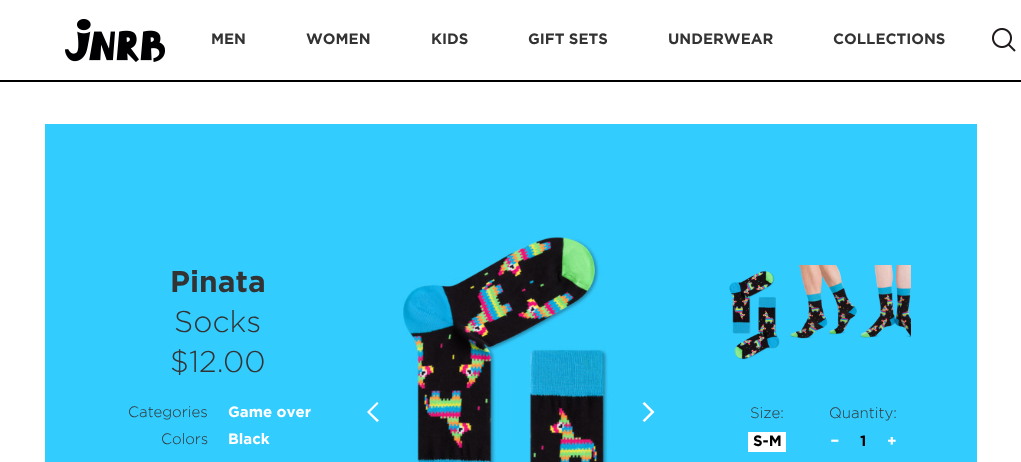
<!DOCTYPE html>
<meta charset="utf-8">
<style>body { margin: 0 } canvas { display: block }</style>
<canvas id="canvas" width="1021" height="462"></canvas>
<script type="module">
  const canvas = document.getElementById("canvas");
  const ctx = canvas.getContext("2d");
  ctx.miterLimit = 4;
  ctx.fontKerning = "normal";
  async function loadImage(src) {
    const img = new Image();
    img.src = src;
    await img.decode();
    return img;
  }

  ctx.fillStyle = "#ffffff";
  ctx.fillRect(0, 0, 1021, 462);
  ctx.drawImage(await loadImage("img1.png"), 65, 19, 100, 43);
  ctx.font = "bold 15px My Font";
  ctx.fillStyle = "#333333";
  ctx.fillText("MEN", 211, 44);
  ctx.fillText("WOMEN", 306, 44);
  ctx.fillText("KIDS", 431, 44);
  ctx.fillText("GIFT SETS", 528, 44);
  ctx.fillText("UNDERWEAR", 668, 44);
  ctx.fillText("COLLECTIONS", 833, 44);
  ctx.drawImage(await loadImage("img2.png"), 992, 28, 24, 24);
  ctx.fillStyle = "#000000";
  ctx.fillRect(0, 80, 1021, 2);
  ctx.fillStyle = "#33ccff";
  ctx.fillRect(45, 124, 932, 338);
  ctx.font = "bold 30px My Font";
  ctx.fillStyle = "#333333";
  ctx.fillText("Pinata", 170, 292);
  ctx.font = "300 30px Gotham";
  ctx.fillText("Socks", 174, 332);
  ctx.fillText("$12.00", 170, 372);
  ctx.font = "300 15px Gotham";
  ctx.fillText("Categories", 128, 417);
  ctx.font = "bold 15px My Font";
  ctx.fillStyle = "#ffffff";
  ctx.fillText("Game over", 228, 417);
  ctx.font = "300 15px Gotham";
  ctx.fillStyle = "#333333";
  ctx.fillText("Colors", 161, 444);
  ctx.font = "bold 15px My Font";
  ctx.fillStyle = "#ffffff";
  ctx.fillText("Black", 228, 444);
  ctx.beginPath();
  ctx.moveTo(367, 412);
  ctx.lineTo(377, 402);
  ctx.lineTo(378.5, 403.5);
  ctx.lineTo(370, 412);
  ctx.lineTo(379, 420.5);
  ctx.lineTo(377, 422);
  ctx.closePath();
  ctx.fill();
  ctx.drawImage(await loadImage("img3.png"), 403, 235, 206, 227);
  ctx.beginPath();
  ctx.moveTo(654.5, 412);
  ctx.lineTo(644.5, 422);
  ctx.lineTo(642.5, 420.5);
  ctx.lineTo(651, 412);
  ctx.lineTo(642.5, 403.5);
  ctx.lineTo(644.5, 402);
  ctx.closePath();
  ctx.fill();
  ctx.drawImage(await loadImage("img4.png"), 729, 271, 51, 89);
  ctx.drawImage(await loadImage("img5.png"), 790, 265, 68, 74);
  ctx.drawImage(await loadImage("img6.png"), 859, 265, 52, 73);
  ctx.font = "300 15px Gotham";
  ctx.fillStyle = "#333333";
  ctx.fillText("Size:", 750, 418);
  ctx.fillStyle = "#ffffff";
  ctx.fillRect(748, 432, 38, 20);
  ctx.font = "bold 15px My Font";
  ctx.fillStyle = "#000000";
  ctx.fillText("S-M", 753, 446);
  ctx.font = "300 15px Gotham";
  ctx.fillStyle = "#333333";
  ctx.fillText("Quantity:", 829, 418);
  ctx.font = "bold 15px My Font";
  ctx.fillStyle = "#ffffff";
  ctx.fillText("−", 830, 446);
  ctx.fillStyle = "#000000";
  ctx.fillText("1", 860, 446);
  ctx.fillStyle = "#ffffff";
  ctx.fillText("+", 887, 446);
</script>
